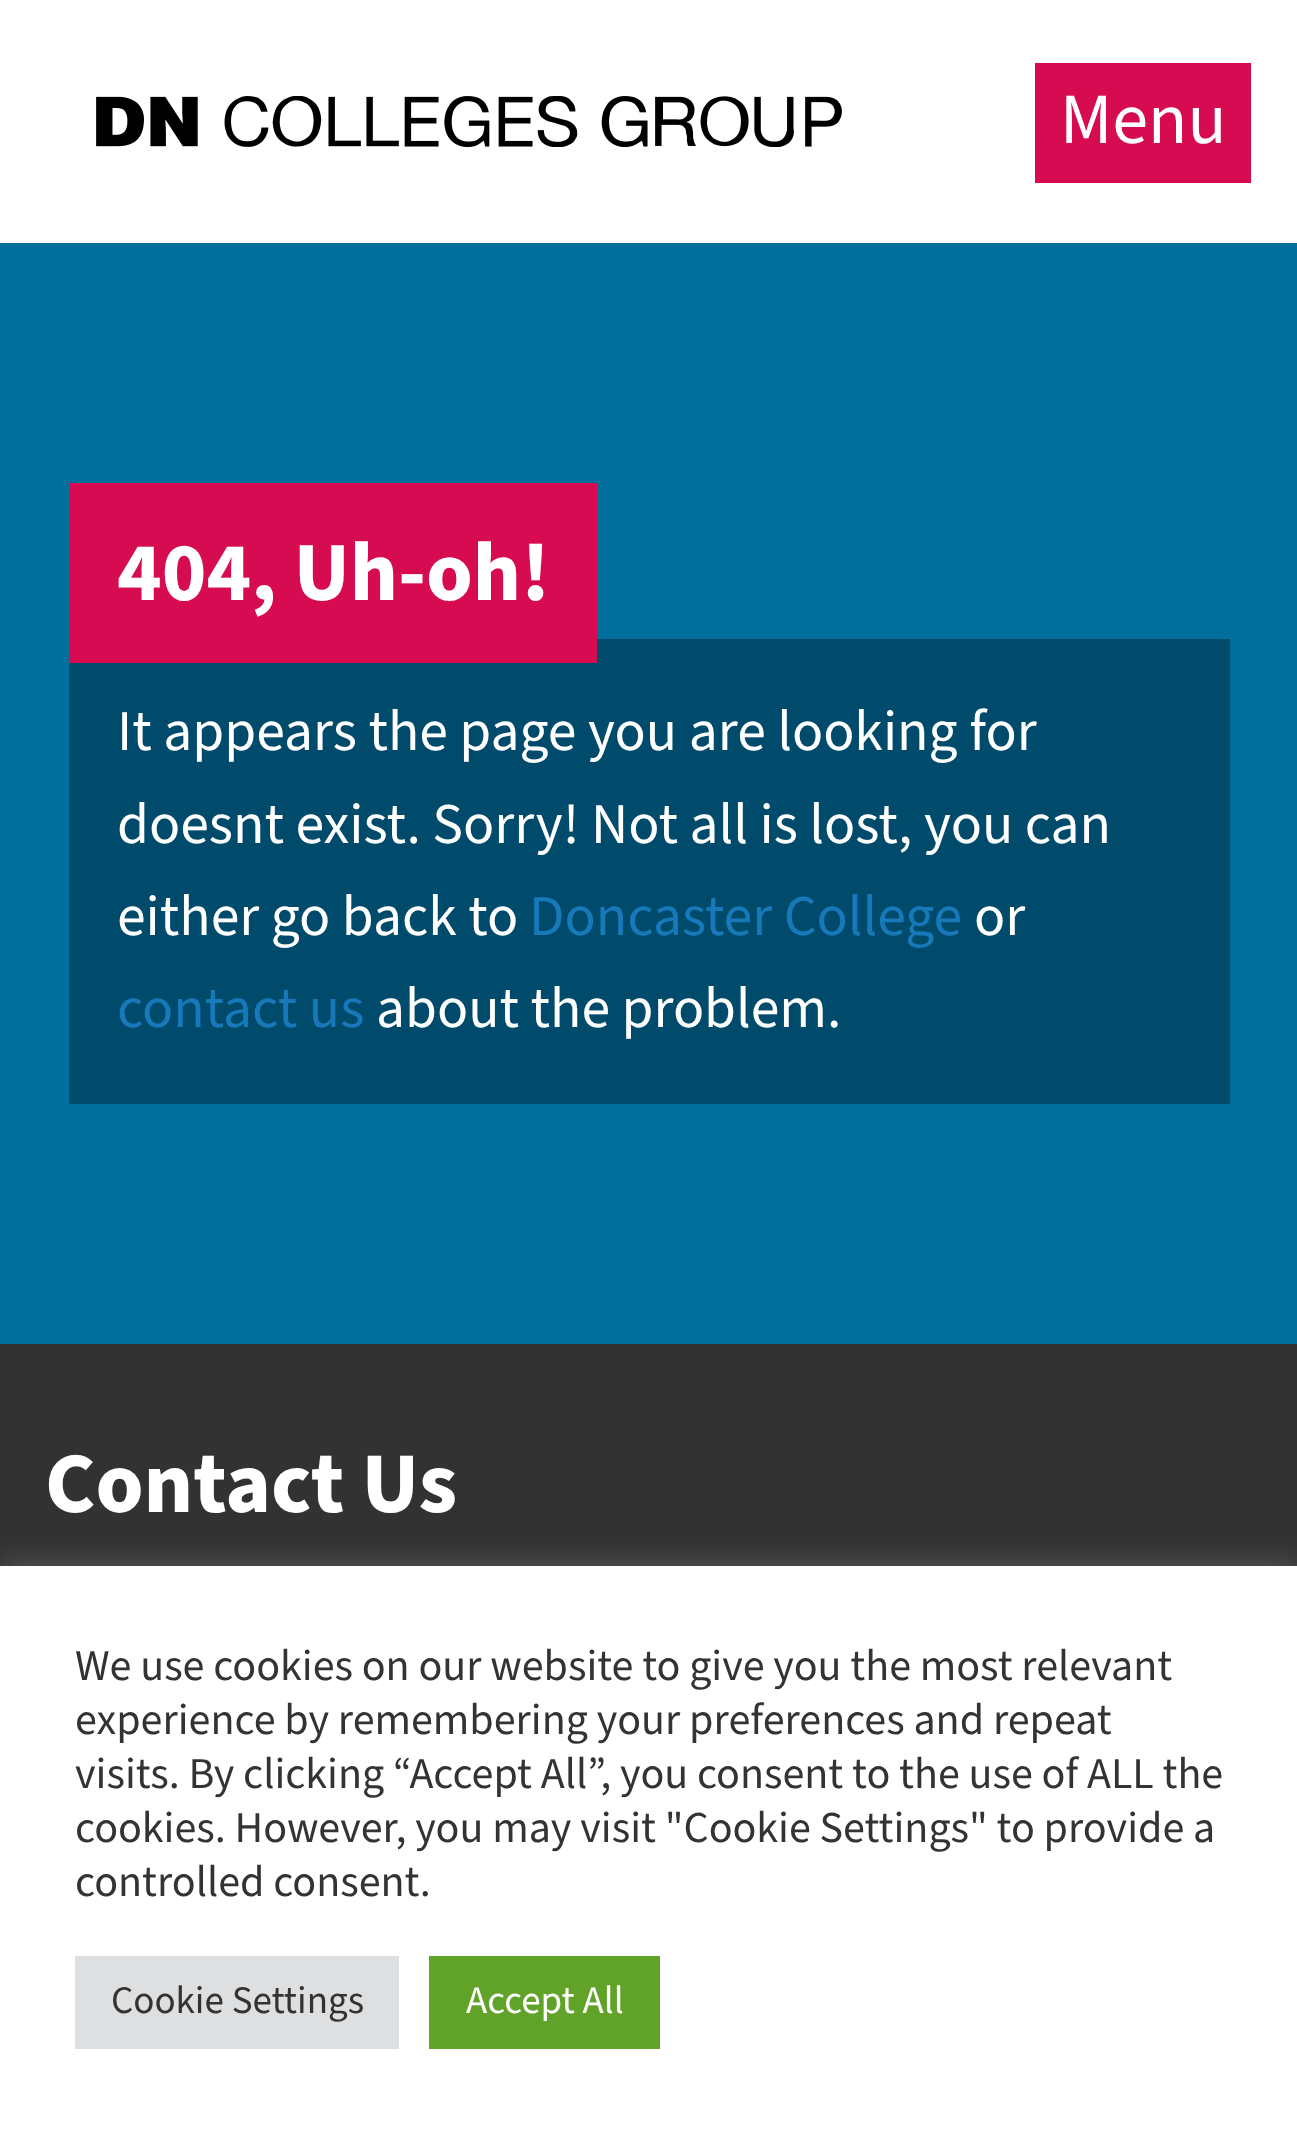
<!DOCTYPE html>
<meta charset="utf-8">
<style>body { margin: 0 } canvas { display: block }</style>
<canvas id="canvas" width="1297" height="2137"></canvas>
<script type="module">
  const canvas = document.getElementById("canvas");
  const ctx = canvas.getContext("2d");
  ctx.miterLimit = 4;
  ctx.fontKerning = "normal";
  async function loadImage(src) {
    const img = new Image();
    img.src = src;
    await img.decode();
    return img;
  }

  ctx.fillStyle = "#ffffff";
  ctx.fillRect(0, 0, 1297, 2137);
  ctx.drawImage(await loadImage("img1.png"), 96, 96, 746, 51);
  ctx.fillStyle = "#d60b51";
  ctx.fillRect(1035, 63, 216, 120);
  ctx.font = "72px Source Sans Pro";
  ctx.fillStyle = "#ffffff";
  ctx.fillText("Menu", 1060, 143);
  ctx.fillStyle = "#006f9e";
  ctx.fillRect(0, 243, 1297, 1101);
  ctx.fillStyle = "#004b6b";
  ctx.fillRect(69, 639, 1161, 465);
  ctx.fillStyle = "#d60b51";
  ctx.fillRect(69, 483, 528, 180);
  ctx.font = "bold 84px Source Sans Pro";
  ctx.fillStyle = "#ffffff";
  ctx.fillText("404, Uh-oh!", 117, 600);
  ctx.font = "57.6px Source Sans Pro";
  ctx.fillText("It appears the page you are looking for", 117, 750);
  ctx.fillText("doesnt exist. Sorry! Not all is lost, you can", 117, 843);
  ctx.fillText("either go back to", 117, 935);
  ctx.fillStyle = "#1779ba";
  ctx.fillText("Doncaster College", 529, 935);
  ctx.fillStyle = "#ffffff";
  ctx.fillText("or", 974, 935);
  ctx.fillStyle = "#1779ba";
  ctx.fillText("contact us", 117, 1027);
  ctx.fillStyle = "#ffffff";
  ctx.fillText("about the problem.", 376, 1027);
  ctx.fillStyle = "#323232";
  ctx.fillRect(0, 1344, 1297, 222);
  ctx.font = "bold 86.5px Source Sans Pro";
  ctx.fillStyle = "#ffffff";
  ctx.fillText("Contact Us", 45, 1512);
  ctx.fillStyle = "rgba(172, 171, 171, 0.3)";
  ctx.filter = "blur(15px)";
  ctx.beginPath();
  ctx.rect(0, 1563, 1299, 573);
  ctx.fill();
  ctx.filter = "none";
  ctx.fillStyle = "#ffffff";
  ctx.fillRect(0, 1566, 1297, 571);
  ctx.font = "44px Source Sans Pro";
  ctx.fillStyle = "#333333";
  ctx.fillText("We use cookies on our website to give you the most relevant", 75, 1680);
  ctx.fillText("experience by remembering your preferences and repeat", 75, 1734);
  ctx.fillText("visits. By clicking “Accept All”, you consent to the use of ALL the", 75, 1788);
  ctx.fillText("cookies. However, you may visit \"Cookie Settings\" to provide a", 75, 1842);
  ctx.fillText("controlled consent.", 75, 1896);
  ctx.fillStyle = "#dedfe0";
  ctx.fillRect(75, 1956, 324, 93);
  ctx.font = "39px Source Sans Pro";
  ctx.fillStyle = "#333333";
  ctx.fillText("Cookie Settings", 111, 2013);
  ctx.fillStyle = "#61a229";
  ctx.fillRect(429, 1956, 231, 93);
  ctx.fillStyle = "#ffffff";
  ctx.fillText("Accept All", 466, 2013);
</script>
